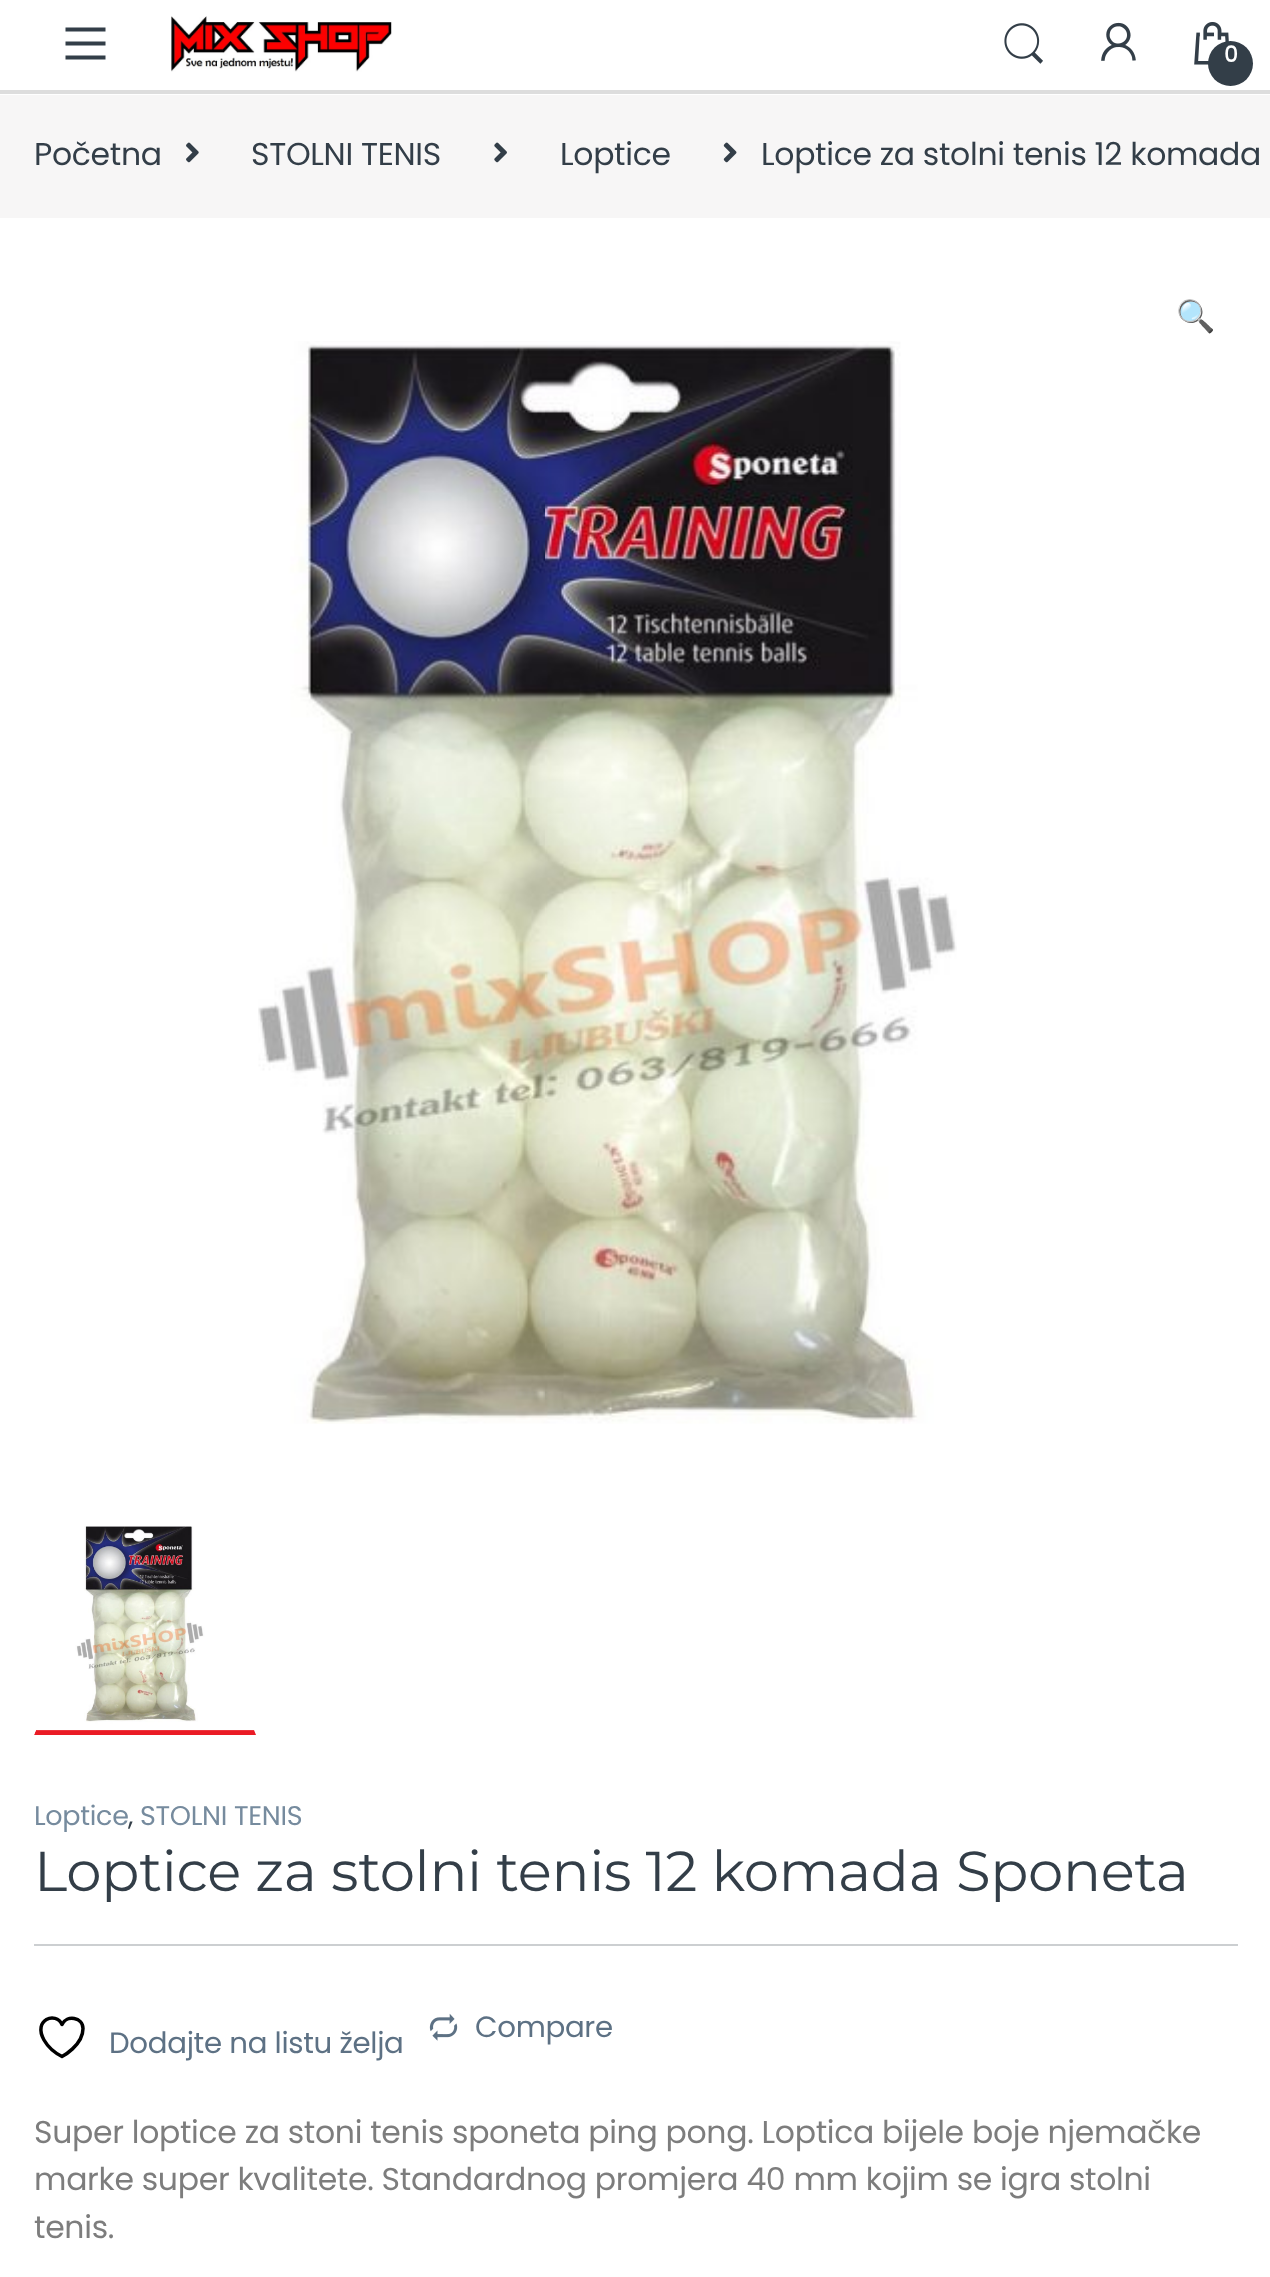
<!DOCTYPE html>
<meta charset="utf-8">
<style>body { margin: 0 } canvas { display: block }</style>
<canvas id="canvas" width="1270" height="2277"></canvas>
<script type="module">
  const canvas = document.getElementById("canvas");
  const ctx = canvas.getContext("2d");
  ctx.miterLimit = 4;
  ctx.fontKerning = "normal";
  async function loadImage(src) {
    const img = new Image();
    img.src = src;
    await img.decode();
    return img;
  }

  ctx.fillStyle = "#ffffff";
  ctx.fillRect(0, 0, 1270, 2277);
  ctx.save();
  ctx.beginPath();
  ctx.moveTo(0, 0);
  ctx.lineTo(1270, 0);
  ctx.lineTo(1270, 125);
  ctx.lineTo(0, 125);
  ctx.closePath();
  ctx.moveTo(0, 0);
  ctx.lineTo(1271, 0);
  ctx.lineTo(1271, 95);
  ctx.lineTo(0, 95);
  ctx.closePath();
  ctx.clip("evenodd");
  ctx.fillStyle = "rgba(0, 0, 0, 0.12)";
  ctx.filter = "blur(6.5px)";
  ctx.beginPath();
  ctx.rect(0, 9, 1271, 95);
  ctx.fill();
  ctx.filter = "none";
  ctx.restore();
  ctx.fillStyle = "#dddddd";
  ctx.fillRect(0, 90, 1270, 4);
  ctx.fillStyle = "#333e48";
  ctx.beginPath();
  ctx.moveTo(65.5, 59.5);
  ctx.lineTo(65.5, 55.5);
  ctx.lineTo(105.5, 55.5);
  ctx.lineTo(105.5, 59.5);
  ctx.closePath();
  ctx.moveTo(65.5, 41.5);
  ctx.lineTo(105.5, 41.5);
  ctx.lineTo(105.5, 45.5);
  ctx.lineTo(65.5, 45.5);
  ctx.closePath();
  ctx.moveTo(65.5, 27.5);
  ctx.lineTo(105.5, 27.5);
  ctx.lineTo(105.5, 31.5);
  ctx.lineTo(65.5, 31.5);
  ctx.closePath();
  ctx.fill();
  ctx.drawImage(await loadImage("img1.png"), 171, 16, 221, 56);
  ctx.drawImage(await loadImage("img2.png"), 1004, 23, 39, 41);
  ctx.drawImage(await loadImage("img3.png"), 1101, 22, 35, 39);
  ctx.drawImage(await loadImage("img4.png"), 1194, 22, 35, 43);
  ctx.beginPath();
  ctx.arc(1230.5, 63.5, 22.5, 0, Math.PI * 2);
  ctx.fill();
  ctx.letterSpacing = "-0.32px";
  ctx.font = "bold 22px Poppins";
  ctx.fillStyle = "#ffffff";
  ctx.fillText("0", 1224, 62);
  ctx.fillStyle = "#f7f6f6";
  ctx.fillRect(0, 95, 1270, 123);
  ctx.font = "31.5px Poppins";
  ctx.fillStyle = "#333e48";
  ctx.fillText("Početna", 34, 165);
  ctx.drawImage(await loadImage("img5.png"), 186, 142, 13, 21);
  ctx.fillText("STOLNI TENIS", 251, 165);
  ctx.drawImage(await loadImage("img6.png"), 494, 142, 13, 21);
  ctx.fillText("Loptice", 560, 165);
  ctx.drawImage(await loadImage("img7.png"), 723, 142, 14, 21);
  ctx.fillText("Loptice za stolni tenis 12 komada", 761, 165);
  ctx.font = "31.5px Noto Color Emoji";
  ctx.fillText("🔍", 1176, 327);
  ctx.drawImage(await loadImage("img8.png"), 258, 341, 699, 1083);
  ctx.fillStyle = "#ea1b25";
  ctx.beginPath();
  ctx.moveTo(256, 1735);
  ctx.lineTo(34, 1735);
  ctx.lineTo(36, 1730);
  ctx.lineTo(254, 1730);
  ctx.closePath();
  ctx.fill();
  ctx.fillStyle = "#ffffff";
  ctx.beginPath();
  ctx.moveTo(34, 1735);
  ctx.lineTo(34, 1510);
  ctx.lineTo(36, 1512);
  ctx.lineTo(36, 1730);
  ctx.closePath();
  ctx.fill();
  ctx.drawImage(await loadImage("img9.png"), 36, 1526, 218, 205);
  ctx.font = "27px Poppins";
  ctx.fillStyle = "#768b9e";
  ctx.fillText("Loptice", 34, 1825);
  ctx.fillStyle = "#333e48";
  ctx.fillText(",", 128, 1825);
  ctx.fillStyle = "#768b9e";
  ctx.fillText("STOLNI TENIS", 140, 1825);
  ctx.font = "100 56.25px Montserrat";
  ctx.fillStyle = "#333e48";
  ctx.fillText("Loptice za stolni tenis 12 komada Sponeta", 34, 1891);
  ctx.fillStyle = "#cccfd1";
  ctx.fillRect(34, 1944, 1204, 2);
  ctx.beginPath();
  ctx.moveTo(83, 2028.5);
  ctx.bezierCurveTo(83, 2017, 66.5, 2014.5, 62, 2024.5);
  ctx.bezierCurveTo(56, 2011, 32.5, 2019.5, 44, 2040);
  ctx.bezierCurveTo(48, 2047, 55, 2053, 62, 2056.5);
  ctx.bezierCurveTo(62, 2056.5, 83, 2045.5, 83, 2028.5);
  ctx.closePath();
  ctx.strokeStyle = "#000000";
  ctx.lineWidth = 3.5;
  ctx.lineCap = "round";
  ctx.lineJoin = "round";
  ctx.stroke();
  ctx.font = "29.25px Poppins";
  ctx.fillStyle = "#5d7184";
  ctx.fillText("Dodajte na listu želja", 109, 2053);
  ctx.drawImage(await loadImage("img10.png"), 429, 2013, 29, 28);
  ctx.fillText("Compare", 475, 2037);
  ctx.font = "31.5px Poppins";
  ctx.fillStyle = "#7d7d7d";
  ctx.fillText("Super loptice za stoni tenis sponeta ping pong. Loptica bijele boje njemačke", 34, 2143);
  ctx.fillText("marke super kvalitete. Standardnog promjera 40 mm kojim se igra stolni", 34, 2190);
  ctx.fillText("tenis.", 34, 2238);
</script>
